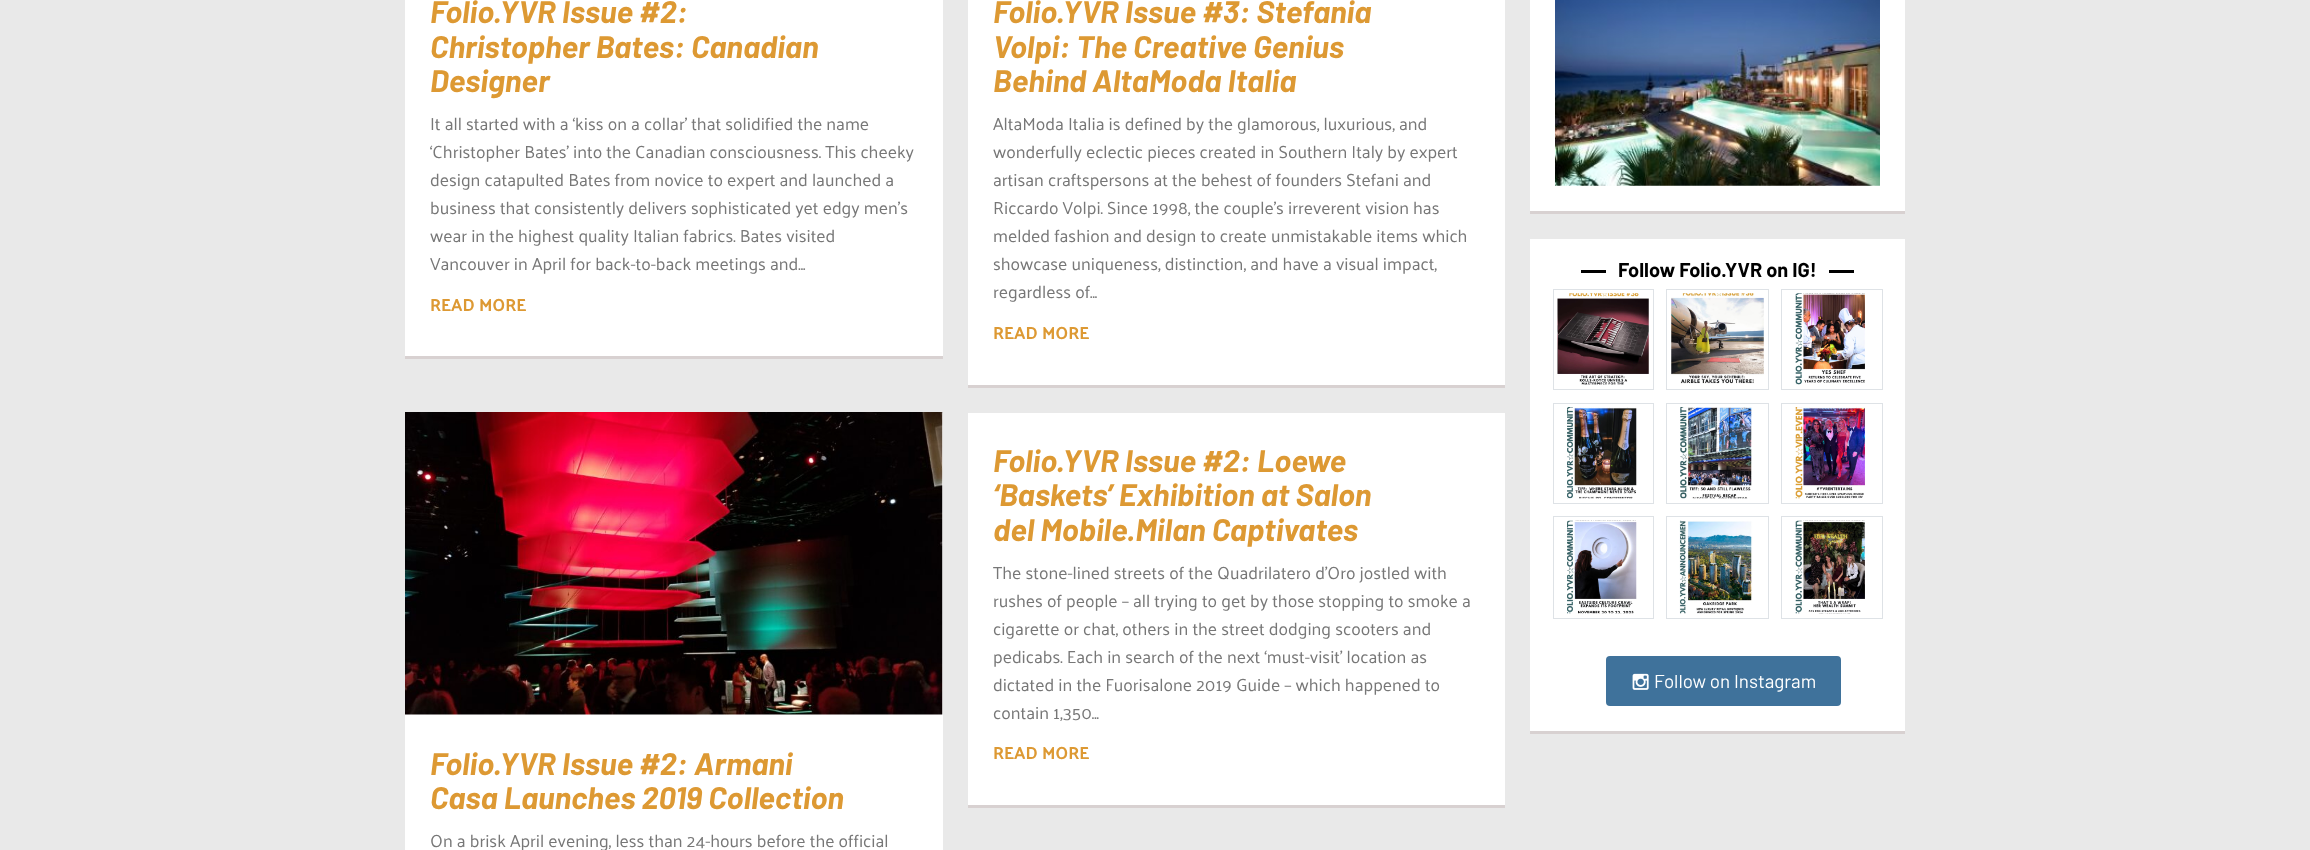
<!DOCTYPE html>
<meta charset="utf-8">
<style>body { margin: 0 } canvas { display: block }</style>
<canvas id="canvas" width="2310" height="850"></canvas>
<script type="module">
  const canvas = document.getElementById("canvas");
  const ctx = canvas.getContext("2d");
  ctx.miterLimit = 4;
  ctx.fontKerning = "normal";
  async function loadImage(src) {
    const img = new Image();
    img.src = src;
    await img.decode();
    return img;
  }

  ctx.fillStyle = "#e9e9e9";
  ctx.fillRect(0, 0, 2310, 850);
  ctx.fillStyle = "#ffffff";
  ctx.fillRect(405, 0, 538, 356);
  ctx.font = "italic bold 31.25px Barlow";
  ctx.fillStyle = "#dd9933";
  ctx.fillText("Folio.YVR Issue #2:", 430, 23);
  ctx.fillText("Christopher Bates: Canadian", 430, 58);
  ctx.fillText("Designer", 430, 92);
  ctx.font = "17.5px Palanquin";
  ctx.fillStyle = "#777777";
  ctx.fillText("It all started with a ‘kiss on a collar’ that solidified the name", 430, 130);
  ctx.fillText("‘Christopher Bates’ into the Canadian consciousness. This cheeky", 430, 158);
  ctx.fillText("design catapulted Bates from novice to expert and launched a", 430, 186);
  ctx.fillText("business that consistently delivers sophisticated yet edgy men’s", 430, 214);
  ctx.fillText("wear in the highest quality Italian fabrics. Bates visited", 430, 242);
  ctx.fillText("Vancouver in April for back-to-back meetings and...", 430, 270);
  ctx.font = "bold 17.5px Palanquin";
  ctx.fillStyle = "#dd9933";
  ctx.fillText("READ MORE", 430, 311);
  ctx.fillStyle = "#d8d1d1";
  ctx.fillRect(405, 356, 538, 3);
  ctx.fillStyle = "#ffffff";
  ctx.fillRect(968, 0, 537, 385);
  ctx.font = "italic bold 31.25px Barlow";
  ctx.fillStyle = "#dd9933";
  ctx.fillText("Folio.YVR Issue #3: Stefania", 993, 23);
  ctx.fillText("Volpi: The Creative Genius", 993, 58);
  ctx.fillText("Behind AltaModa Italia", 993, 92);
  ctx.font = "17.5px Palanquin";
  ctx.fillStyle = "#777777";
  ctx.fillText("AltaModa Italia is defined by the glamorous, luxurious, and", 993, 130);
  ctx.fillText("wonderfully eclectic pieces created in Southern Italy by expert", 993, 158);
  ctx.fillText("artisan craftspersons at the behest of founders Stefani and", 993, 186);
  ctx.fillText("Riccardo Volpi. Since 1998, the couple’s irreverent vision has", 993, 214);
  ctx.fillText("melded fashion and design to create unmistakable items which", 993, 242);
  ctx.fillText("showcase uniqueness, distinction, and have a visual impact,", 993, 270);
  ctx.fillText("regardless of...", 993, 298);
  ctx.font = "bold 17.5px Palanquin";
  ctx.fillStyle = "#dd9933";
  ctx.fillText("READ MORE", 993, 339);
  ctx.fillStyle = "#d8d1d1";
  ctx.fillRect(968, 385, 537, 3);
  ctx.fillStyle = "#ffffff";
  ctx.fillRect(968, 413, 537, 392);
  ctx.font = "italic bold 31.25px Barlow";
  ctx.fillStyle = "#dd9933";
  ctx.fillText("Folio.YVR Issue #2: Loewe", 993, 472);
  ctx.fillText("‘Baskets’ Exhibition at Salon", 993, 506);
  ctx.fillText("del Mobile.Milan Captivates", 993, 541);
  ctx.font = "17.5px Palanquin";
  ctx.fillStyle = "#777777";
  ctx.fillText("The stone-lined streets of the Quadrilatero d’Oro jostled with", 993, 579);
  ctx.fillText("rushes of people – all trying to get by those stopping to smoke a", 993, 607);
  ctx.fillText("cigarette or chat, others in the street dodging scooters and", 993, 635);
  ctx.fillText("pedicabs. Each in search of the next ‘must-visit’ location as", 993, 663);
  ctx.fillText("dictated in the Fuorisalone 2019 Guide – which happened to", 993, 691);
  ctx.fillText("contain 1,350...", 993, 719);
  ctx.font = "bold 17.5px Palanquin";
  ctx.fillStyle = "#dd9933";
  ctx.fillText("READ MORE", 993, 759);
  ctx.fillStyle = "#d8d1d1";
  ctx.fillRect(968, 805, 537, 3);
  ctx.fillStyle = "#ffffff";
  ctx.fillRect(405, 413, 538, 437);
  ctx.drawImage(await loadImage("img1.png"), 405, 412, 538, 303);
  ctx.font = "italic bold 31.25px Barlow";
  ctx.fillStyle = "#dd9933";
  ctx.fillText("Folio.YVR Issue #2: Armani", 430, 775);
  ctx.fillText("Casa Launches 2019 Collection", 430, 809);
  ctx.font = "17.5px Palanquin";
  ctx.fillStyle = "#777777";
  ctx.fillText("On a brisk April evening, less than 24-hours before the official", 430, 847);
  ctx.fillStyle = "#ffffff";
  ctx.fillRect(1530, 0, 375, 211);
  ctx.drawImage(await loadImage("img2.png"), 1555, 0, 325, 186);
  ctx.fillStyle = "#d8d1d1";
  ctx.fillRect(1530, 211, 375, 3);
  ctx.fillStyle = "#ffffff";
  ctx.fillRect(1530, 239, 375, 492);
  ctx.fillStyle = "#000000";
  ctx.fillRect(1581, 270, 25, 3);
  ctx.font = "bold 20px Barlow";
  ctx.fillText("Follow Folio.YVR on IG!", 1618, 277);
  ctx.fillRect(1829, 270, 25, 3);
  ctx.strokeStyle = "#dee2e6";
  ctx.strokeRect(1553.5, 289.5, 100, 100);
  ctx.drawImage(await loadImage("img3.png"), 1557, 293, 92, 92);
  ctx.strokeRect(1666.5, 289.5, 102, 100);
  ctx.drawImage(await loadImage("img4.png"), 1671, 293, 93, 91);
  ctx.strokeRect(1781.5, 289.5, 101, 100);
  ctx.drawImage(await loadImage("img5.png"), 1795, 293, 71, 92);
  ctx.strokeRect(1553.5, 403.5, 100, 100);
  ctx.drawImage(await loadImage("img6.png"), 1567, 407, 70, 92);
  ctx.strokeRect(1666.5, 403.5, 102, 100);
  ctx.drawImage(await loadImage("img7.png"), 1680, 407, 72, 92);
  ctx.strokeRect(1781.5, 403.5, 101, 100);
  ctx.drawImage(await loadImage("img8.png"), 1795, 407, 71, 92);
  ctx.strokeRect(1553.5, 516.5, 100, 102);
  ctx.drawImage(await loadImage("img9.png"), 1567, 520, 70, 94);
  ctx.strokeRect(1666.5, 516.5, 102, 102);
  ctx.drawImage(await loadImage("img10.png"), 1679, 520, 74, 94);
  ctx.strokeRect(1781.5, 516.5, 101, 102);
  ctx.drawImage(await loadImage("img11.png"), 1795, 520, 70, 94);
  ctx.fillStyle = "#3f729b";
  ctx.beginPath();
  ctx.roundRect(1606, 656, 235, 50, 4);
  ctx.fill();
  ctx.drawImage(await loadImage("img12.png"), 1632, 673, 17, 17);
  ctx.font = "18.75px Barlow";
  ctx.fillStyle = "#ffffff";
  ctx.fillText("Follow on Instagram", 1654, 688);
  ctx.fillStyle = "#d8d1d1";
  ctx.fillRect(1530, 731, 375, 3);
</script>
